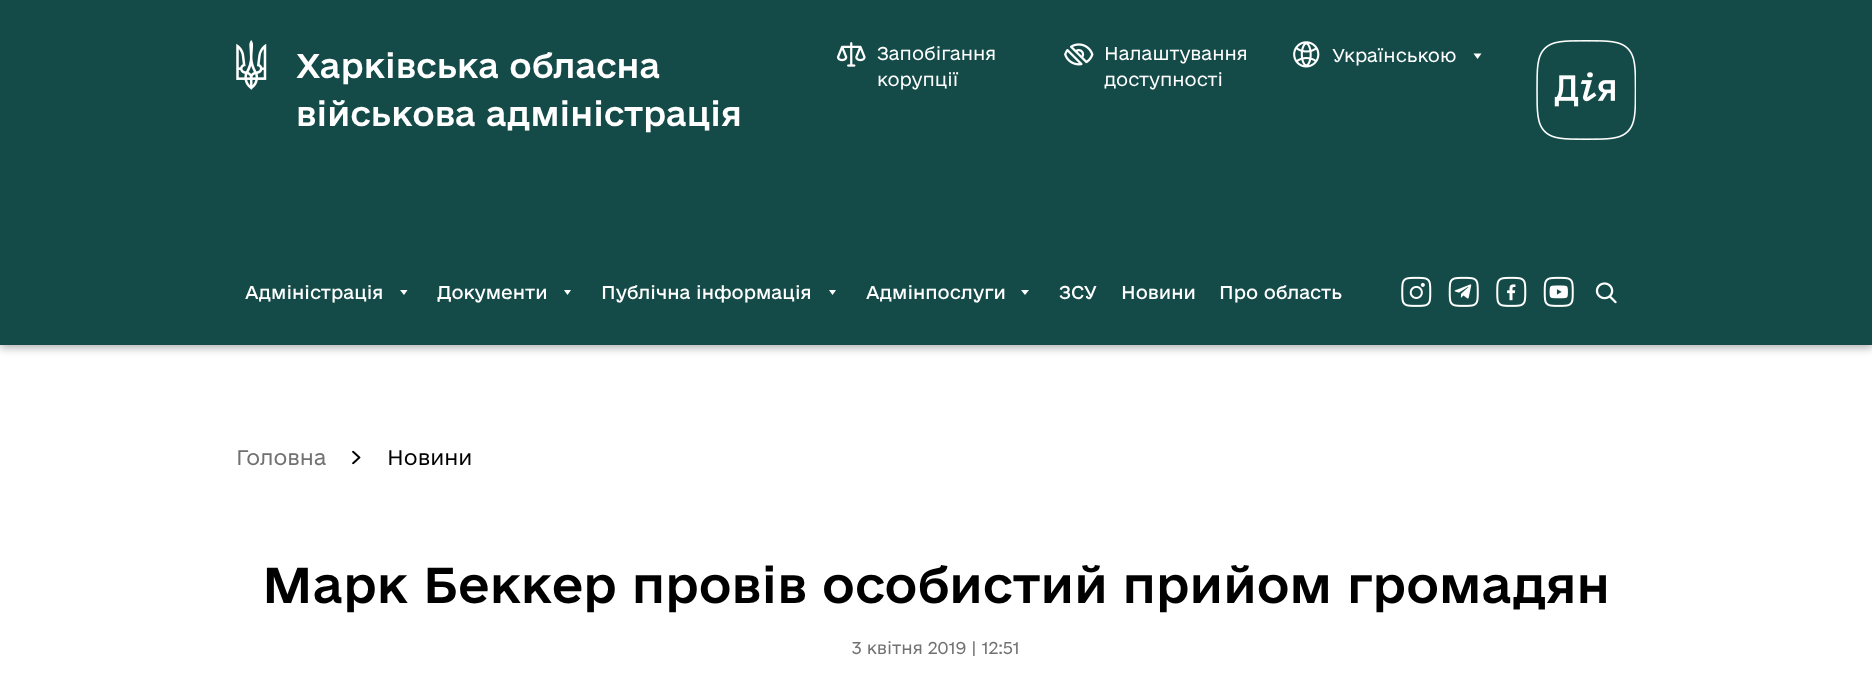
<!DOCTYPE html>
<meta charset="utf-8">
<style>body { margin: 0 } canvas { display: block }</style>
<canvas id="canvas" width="1872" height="683"></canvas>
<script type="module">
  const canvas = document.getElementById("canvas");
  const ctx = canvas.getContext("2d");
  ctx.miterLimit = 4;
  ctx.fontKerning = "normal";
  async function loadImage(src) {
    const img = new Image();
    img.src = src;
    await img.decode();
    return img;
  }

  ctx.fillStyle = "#ffffff";
  ctx.fillRect(0, 0, 1872, 683);
  ctx.fillStyle = "rgba(0, 0, 0, 0.3)";
  ctx.filter = "blur(4px)";
  ctx.beginPath();
  ctx.rect(0, 3, 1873, 345);
  ctx.fill();
  ctx.filter = "none";
  ctx.fillStyle = "#144b48";
  ctx.fillRect(0, 0, 1872, 345);
  ctx.drawImage(await loadImage("img1.png"), 236, 40, 31, 50);
  ctx.font = "500 32.5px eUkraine";
  ctx.fillStyle = "#ffffff";
  ctx.fillText("Харківська обласна", 296, 78);
  ctx.fillText("військова адміністрація", 296, 126);
  ctx.drawImage(await loadImage("img2.png"), 836, 42, 30, 25);
  ctx.font = "300 17.5px eUkraine";
  ctx.fillText("Запобігання", 877, 60);
  ctx.fillText("корупції", 877, 86);
  ctx.drawImage(await loadImage("img3.png"), 1064, 43, 30, 23);
  ctx.fillText("Налаштування", 1104, 60);
  ctx.fillText("доступності", 1104, 86);
  ctx.drawImage(await loadImage("img4.png"), 1293, 41, 27, 27);
  ctx.fillText("Українською", 1332, 62);
  ctx.beginPath();
  ctx.moveTo(1477.5, 59);
  ctx.lineTo(1473.5, 53.5);
  ctx.lineTo(1481.5, 53.5);
  ctx.closePath();
  ctx.fill();
  ctx.drawImage(await loadImage("img5.png"), 1536, 40, 100, 100);
  ctx.font = "17.5px eUkraine";
  ctx.fillText("Адміністрація", 245, 299);
  ctx.beginPath();
  ctx.moveTo(404, 295);
  ctx.lineTo(400, 290);
  ctx.lineTo(407.5, 290);
  ctx.closePath();
  ctx.fill();
  ctx.fillText("Документи", 437, 299);
  ctx.beginPath();
  ctx.moveTo(567.5, 295);
  ctx.lineTo(564, 290);
  ctx.lineTo(571, 290);
  ctx.closePath();
  ctx.fill();
  ctx.fillText("Публічна інформація", 601, 299);
  ctx.beginPath();
  ctx.moveTo(832.5, 295);
  ctx.lineTo(829, 290);
  ctx.lineTo(836, 290);
  ctx.closePath();
  ctx.fill();
  ctx.fillText("Адмінпослуги", 866, 299);
  ctx.beginPath();
  ctx.moveTo(1025, 295);
  ctx.lineTo(1021, 290);
  ctx.lineTo(1029, 290);
  ctx.closePath();
  ctx.fill();
  ctx.fillText("ЗСУ", 1059, 299);
  ctx.fillText("Новини", 1121, 299);
  ctx.fillText("Про область", 1219, 299);
  ctx.drawImage(await loadImage("img6.png"), 1401, 276, 31, 31);
  ctx.drawImage(await loadImage("img7.png"), 1448, 276, 31, 31);
  ctx.drawImage(await loadImage("img8.png"), 1496, 276, 31, 31);
  ctx.drawImage(await loadImage("img9.png"), 1543, 276, 31, 31);
  ctx.drawImage(await loadImage("img10.png"), 1595, 282, 22, 22);
  ctx.font = "300 20px eUkraine";
  ctx.fillStyle = "#717171";
  ctx.fillText("Головна", 236, 465);
  ctx.drawImage(await loadImage("img11.png"), 352, 450, 9, 15);
  ctx.fillStyle = "#000000";
  ctx.fillText("Новини", 387, 465);
  ctx.font = "500 47.5px eUkraine";
  ctx.fillText("Марк Беккер провів особистий прийом громадян", 262, 603);
  ctx.font = "300 16.25px eUkraine";
  ctx.fillStyle = "#717171";
  ctx.fillText("3 квітня 2019 | 12:51", 852, 654);
</script>
